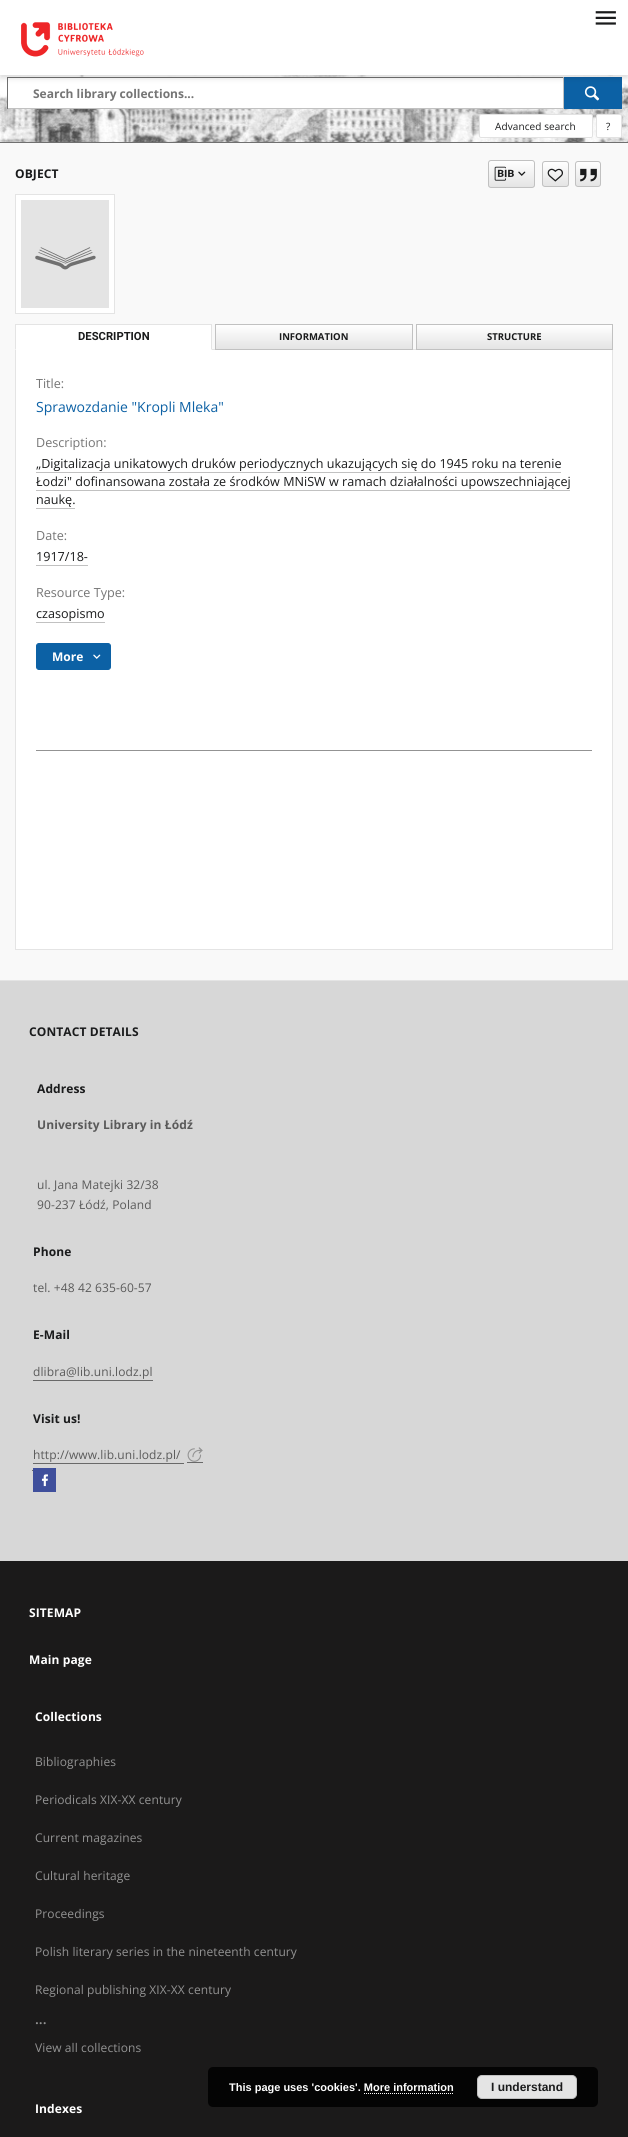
import math
import cairo

surface = cairo.ImageSurface(cairo.Format.RGB24, 628, 2137)
ctx = cairo.Context(surface)
options = cairo.FontOptions()
options.set_hint_metrics(cairo.HintMetrics.OFF)
options.set_hint_style(cairo.HintStyle.NONE)
ctx.set_font_options(options)
ctx.set_miter_limit(4)


def ink(r, g, b):
    ctx.set_source_rgb(r / 255, g / 255, b / 255)


def write(x, y, s, family, size, color, bold=False, italic=False):
    ctx.select_font_face(family, cairo.FontSlant.ITALIC if italic else cairo.FontSlant.NORMAL, cairo.FontWeight.BOLD if bold else cairo.FontWeight.NORMAL)
    ctx.set_font_size(size)
    ink(*color)
    ctx.move_to(x, y)
    ctx.show_text(s)


def write_spaced(x, y, s, letter, word):
    ctx.move_to(x, y)
    for ch in s:
        ctx.show_text(ch)
        ctx.rel_move_to(letter + word * (ch == ' '), 0)


def block(x, y, w, h, *color):
    ink(*color)
    ctx.rectangle(x, y, w, h)
    ctx.fill()


def round_path(x, y, w, h, r):
    ctx.new_sub_path()
    for i, (u, v) in enumerate([(x + w - r, y + h - r), (x + r, y + h - r), (x + r, y + r), (x + w - r, y + r)]):
        ctx.arc(u, v, r, i * math.pi / 2, (i + 1) * math.pi / 2)
    ctx.close_path()


def blur_box(x, y, w, h, r, blur, alpha):
    ctx.push_group_with_content(cairo.Content.ALPHA)
    ctx.set_operator(cairo.Operator.SOURCE)
    for i in range(15, -16, -2):
        e = blur * i / 6
        if min(w, h) + 2 * e > 0:
            ctx.set_source_rgba(0, 0, 0, alpha * math.erfc((i - 1) / 8.5) / 2)
            round_path(x - e, y - e, w + 2 * e, h + 2 * e, max(0, min(r + e + blur * .6, min(w, h) / 2 + e)))
            ctx.fill()
    ctx.mask(ctx.pop_group())


def paste(path, x, y, w, h):
    ctx.save()
    ctx.set_source_surface(cairo.ImageSurface.create_from_png(path), x, y)
    ctx.rectangle(x, y, w, h)
    ctx.fill()
    ctx.restore()


s1 = dict(family="Open Sans", size=12, color=(117, 117, 117), bold=True)
s2 = dict(family="Open Sans", size=10, color=(26, 27, 28))
s3 = dict(family="Roboto", size=11.25, color=(26, 27, 28), bold=True)
s4 = dict(family="Open Sans", size=9.5, color=(26, 27, 28), bold=True)
s5 = dict(family="Open Sans", size=12.6, color=(117, 117, 117))
s6 = dict(family="Open Sans", size=14, color=(12, 97, 165))
s7 = dict(family="Open Sans", size=12.6, color=(26, 27, 28))
s8 = dict(family="Open Sans", size=12, color=(255, 255, 255), bold=True)
s9 = dict(family="Open Sans SemiBold", size=14, color=(147, 147, 147))
s10 = dict(family="Liberation Sans", size=11, color=(255, 255, 255), bold=True)
s11 = dict(family="Liberation Sans", size=12, color=(26, 27, 28), bold=True)

ink(249, 249, 249)
ctx.paint()
paste("pic3.png", 0, 75, 628, 67)
block(8, 78, 555, 30, 255, 255, 255)
block(7, 77, 557, 1, 112, 112, 112)
block(563, 77, 1, 32, 193, 193, 193)
block(7, 108, 557, 1, 193, 193, 193)
block(7, 77, 1, 32, 112, 112, 112)
block(564, 77, 58, 32, 12, 97, 165)
paste("pic4.png", 584, 86, 16, 15)
ink(0, 0, 0)
blur_box(0, 1, 628, 75, 0, 5, 0.08)
blur_box(0, 4, 628, 75, 0, 2.5, 0.06)
blur_box(1, 3, 626, 73, 0, 2, 0.06)
block(0, 0, 628, 75, 255, 255, 255)
paste("pic1.png", 595, 11, 21, 14)
paste("pic2.png", 21, 22, 123, 35)
block(0, 142, 628, 1, 112, 112, 112)
write(33, 98, "Search library collections...", **s1)
ink(255, 255, 255)
round_path(479.5, 114.5, 113, 23, 1.5)
ctx.fill_preserve()
ink(226, 226, 226)
ctx.set_line_width(1)
ctx.stroke()
ctx.select_font_face("Open Sans")
ctx.set_font_size(10)
ink(26, 27, 28)
write_spaced(495, 130, "Advanced search", 0.1, 0)
ink(255, 255, 255)
round_path(596.5, 114.5, 25, 23, 1.5)
ctx.fill_preserve()
ink(226, 226, 226)
ctx.stroke()
write(606, 130, "?", **s2)
ctx.select_font_face("Open Sans", cairo.FontSlant.NORMAL, cairo.FontWeight.BOLD)
ctx.set_font_size(12)
write_spaced(15, 178, "OBJECT", 0.1, 0)
ctx.save()
round_path(488, 160, 47, 28, 3)
ctx.clip()
gradient = cairo.LinearGradient(512, 161, 512, 187)
gradient.add_color_stop_rgba(0, 1, 1, 1, 1)
gradient.add_color_stop_rgba(1, 0.894, 0.894, 0.894, 1)
ctx.set_source(gradient)
ctx.rectangle(488, 161, 47, 26)
ctx.fill()
ctx.restore()
round_path(488.5, 160.5, 46, 27, 2.5)
ink(193, 193, 193)
ctx.stroke()
paste("pic5.png", 494, 166, 20, 15)
paste("pic6.png", 518, 171, 8, 5)
ctx.save()
round_path(542, 161, 27, 26, 3)
ctx.clip()
gradient = cairo.LinearGradient(556, 162, 556, 186)
gradient.add_color_stop_rgba(0, 1, 1, 1, 1)
gradient.add_color_stop_rgba(1, 0.894, 0.894, 0.894, 1)
ctx.set_source(gradient)
ctx.rectangle(542, 162, 27, 24)
ctx.fill()
ctx.restore()
round_path(542.5, 161.5, 26, 25, 2.5)
ctx.stroke()
paste("pic7.png", 547, 168, 16, 14)
ctx.save()
round_path(575, 161, 26, 26, 3)
ctx.clip()
gradient = cairo.LinearGradient(588, 162, 588, 186)
gradient.add_color_stop_rgba(0, 1, 1, 1, 1)
gradient.add_color_stop_rgba(1, 0.894, 0.894, 0.894, 1)
ctx.set_source(gradient)
ctx.rectangle(575, 162, 26, 24)
ctx.fill()
ctx.restore()
round_path(575.5, 161.5, 25, 25, 2.5)
ctx.stroke()
paste("pic8.png", 580, 168, 17, 14)
ink(255, 255, 255)
ctx.rectangle(15.5, 194.5, 99, 119)
ctx.fill_preserve()
ink(228, 228, 228)
ctx.stroke()
block(21, 200, 88, 108, 228, 228, 228)
paste("pic9.png", 35, 247, 61, 23)
block(212, 349, 204, 1, 228, 228, 228)
block(15, 325, 197, 25, 255, 255, 255)
block(15, 324, 197, 1, 228, 228, 228)
ctx.new_path()
ctx.move_to(212, 324)
ctx.line_to(212, 350)
ctx.line_to(211, 349)
ctx.line_to(211, 325)
ctx.close_path()
ctx.fill()
ctx.new_path()
ctx.move_to(15, 350)
ctx.line_to(15, 324)
ctx.line_to(16, 325)
ctx.line_to(16, 349)
ctx.close_path()
ctx.fill()
write(78, 340, "DESCRIPTION", **s3)
gradient = cairo.LinearGradient(314, 325, 314, 349)
gradient.add_color_stop_rgba(0, 1, 1, 1, 1)
gradient.add_color_stop_rgba(1, 0.894, 0.894, 0.894, 1)
ctx.set_source(gradient)
ctx.rectangle(216, 325, 196, 24)
ctx.fill()
ctx.rectangle(215.5, 324.5, 197, 25)
ink(193, 193, 193)
ctx.stroke()
write(279, 340, "INFORMATION", **s4)
gradient = cairo.LinearGradient(515, 325, 515, 349)
gradient.add_color_stop_rgba(0, 1, 1, 1, 1)
gradient.add_color_stop_rgba(1, 0.894, 0.894, 0.894, 1)
ctx.set_source(gradient)
ctx.rectangle(417, 325, 195, 24)
ctx.fill()
ctx.rectangle(416.5, 324.5, 196, 25)
ink(193, 193, 193)
ctx.stroke()
write(487, 340, "STRUCTURE", **s4)
block(16, 350, 596, 599, 255, 255, 255)
block(612, 350, 1, 600, 228, 228, 228)
block(15, 949, 598, 1, 228, 228, 228)
block(15, 350, 1, 600, 228, 228, 228)
write(36, 388, "Title:", **s5)
write(36, 412, "Sprawozdanie \"Kropli Mleka\"", **s6)
write(36, 447, "Description:", **s5)
write(36, 468, "„Digitalizacja unikatowych druków periodycznych ukazujących się do 1945 roku na terenie", **s7)
block(36, 472, 525, 1, 193, 193, 193)
write(36, 486, "Łodzi\" dofinansowana została ze środków MNiSW w ramach działalności upowszechniającej", **s7)
block(36, 490, 534, 1, 193, 193, 193)
write(36, 504, "naukę.", **s7)
block(36, 508, 39, 1, 193, 193, 193)
write(36, 540, "Date:", **s5)
write(36, 561, "1917/18-", **s7)
block(36, 565, 52, 1, 193, 193, 193)
write(36, 597, "Resource Type:", **s5)
write(36, 618, "czasopismo", **s7)
block(36, 622, 69, 1, 193, 193, 193)
ink(12, 97, 165)
round_path(36.5, 643.5, 74, 26, 2.5)
ctx.fill_preserve()
ctx.stroke()
write(52, 661, "More", **s8)
paste("pic10.png", 93, 654, 8, 5)
block(36, 750, 556, 1, 147, 147, 147)
block(0, 981, 628, 580, 215, 215, 215)
block(0, 980, 628, 1, 228, 228, 228)
ink(26, 27, 28)
write_spaced(29, 1036, "CONTACT DETAILS", 0.1, 0)
write_spaced(37, 1093, "Address", 0.1, 0)
ink(90, 90, 90)
write_spaced(37, 1129, "University Library in Łódź", 0.1, 0)
ctx.select_font_face("Open Sans")
write_spaced(37, 1189, "ul. Jana Matejki 32/38", 0.1, 0)
write_spaced(37, 1209, "90-237 Łódź, Poland", 0.1, 0)
ctx.select_font_face("Open Sans", cairo.FontSlant.NORMAL, cairo.FontWeight.BOLD)
ink(26, 27, 28)
write_spaced(33, 1256, "Phone", 0.1, 0)
ctx.select_font_face("Open Sans")
ink(90, 90, 90)
write_spaced(33, 1292, "tel. +48 42 635-60-57", 0.1, 0)
ctx.select_font_face("Open Sans", cairo.FontSlant.NORMAL, cairo.FontWeight.BOLD)
ink(26, 27, 28)
write_spaced(33, 1339, "E-Mail", 0.1, 0)
ctx.select_font_face("Open Sans")
ink(90, 90, 90)
write_spaced(33, 1376, "dlibra@lib.uni.lodz.pl", 0.1, 0)
block(33, 1380, 120, 1, 105, 105, 105)
ctx.select_font_face("Open Sans", cairo.FontSlant.NORMAL, cairo.FontWeight.BOLD)
ink(26, 27, 28)
write_spaced(33, 1423, "Visit us!", 0.1, 0)
ctx.select_font_face("Open Sans")
ink(90, 90, 90)
write_spaced(33, 1459, "http://www.lib.uni.lodz.pl/", 0.1, 0)
block(33, 1463, 151, 1, 105, 105, 105)
block(187, 1462, 16, 1, 105, 105, 105)
paste("pic11.png", 187, 1447, 16, 15)
block(32, 1470, 1, 1, 105, 105, 105)
block(33, 1468, 23, 24, 63, 79, 156)
paste("pic12.png", 41, 1474, 7, 13)
block(0, 1561, 628, 576, 27, 26, 26)
ctx.select_font_face("Open Sans", cairo.FontSlant.NORMAL, cairo.FontWeight.BOLD)
ink(255, 255, 255)
write_spaced(29, 1617, "SITEMAP", 0.1, 0)
write_spaced(29, 1664, "Main page", 0.1, 0)
write_spaced(35, 1721, "Collections", 0.1, 0)
ctx.select_font_face("Open Sans")
ink(147, 147, 147)
write_spaced(35, 1766, "Bibliographies", 0.1, 0)
write_spaced(35, 1804, "Periodicals XIX-XX century", 0.1, 0)
write_spaced(35, 1842, "Current magazines", 0.1, 0)
write_spaced(35, 1880, "Cultural heritage", 0.1, 0)
write_spaced(35, 1918, "Proceedings", 0.1, 0)
write_spaced(35, 1956, "Polish literary series in the nineteenth century", 0.1, 0)
write_spaced(35, 1994, "Regional publishing XIX-XX century", 0.1, 0)
write(35, 2024, "...", **s9)
ctx.select_font_face("Open Sans")
ctx.set_font_size(12)
write_spaced(35, 2052, "View all collections", 0.1, 0)
ctx.select_font_face("Open Sans", cairo.FontSlant.NORMAL, cairo.FontWeight.BOLD)
ink(255, 255, 255)
write_spaced(35, 2113, "Indexes", 0.1, 0)
ink(4, 4, 4)
round_path(208, 2067, 390, 40, 5)
ctx.fill()
write(229, 2091, "This page uses 'cookies'. More information", **s10)
ink(228, 228, 228)
round_path(477.5, 2075.5, 99, 23, 4.5)
ctx.fill_preserve()
ink(193, 193, 193)
ctx.stroke()
write(491, 2091, "I understand", **s11)
ctx.new_path()
ctx.move_to(364, 2093.5)
ctx.line_to(454, 2093.5)
ink(255, 255, 255)
ctx.set_dash([1, 1])
ctx.stroke()
surface.write_to_png("screenshot.png")
